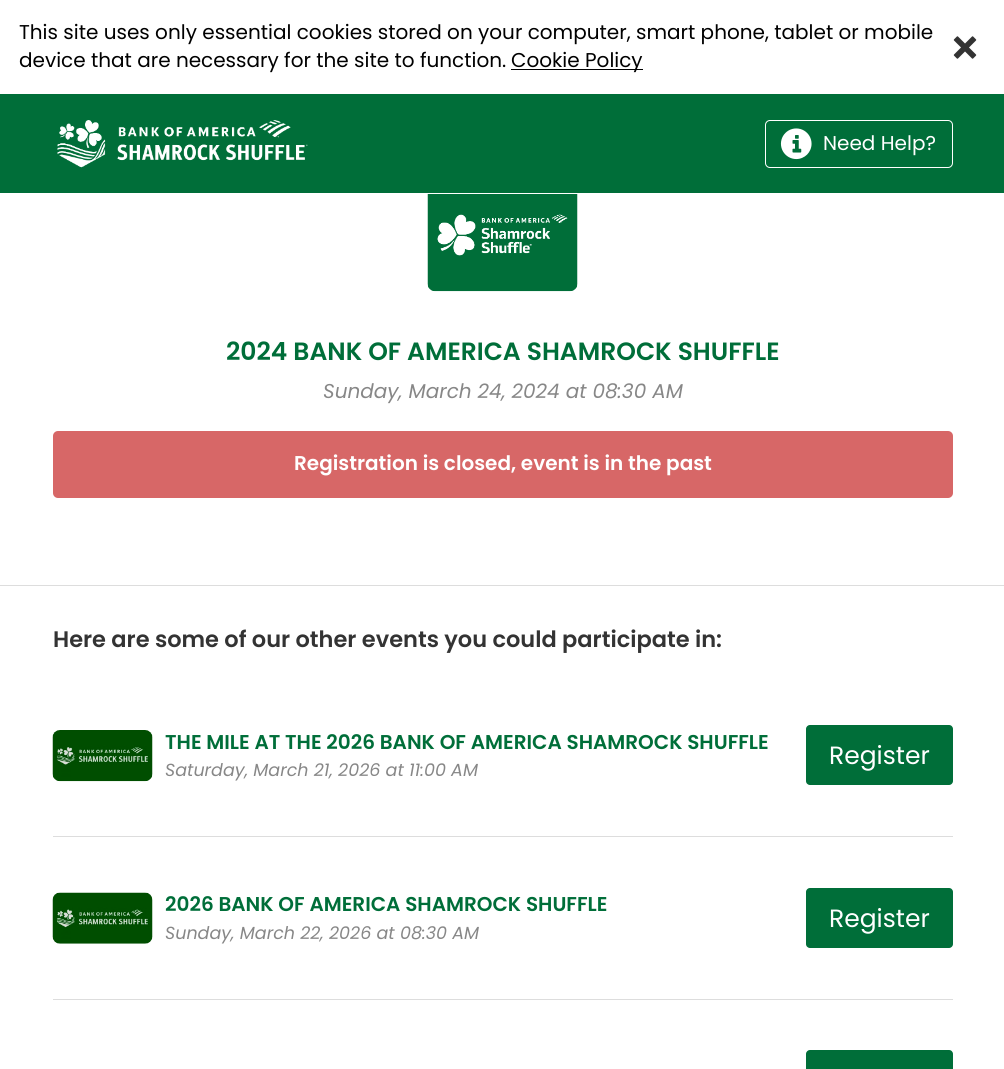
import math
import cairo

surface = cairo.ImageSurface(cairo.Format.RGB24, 1004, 1069)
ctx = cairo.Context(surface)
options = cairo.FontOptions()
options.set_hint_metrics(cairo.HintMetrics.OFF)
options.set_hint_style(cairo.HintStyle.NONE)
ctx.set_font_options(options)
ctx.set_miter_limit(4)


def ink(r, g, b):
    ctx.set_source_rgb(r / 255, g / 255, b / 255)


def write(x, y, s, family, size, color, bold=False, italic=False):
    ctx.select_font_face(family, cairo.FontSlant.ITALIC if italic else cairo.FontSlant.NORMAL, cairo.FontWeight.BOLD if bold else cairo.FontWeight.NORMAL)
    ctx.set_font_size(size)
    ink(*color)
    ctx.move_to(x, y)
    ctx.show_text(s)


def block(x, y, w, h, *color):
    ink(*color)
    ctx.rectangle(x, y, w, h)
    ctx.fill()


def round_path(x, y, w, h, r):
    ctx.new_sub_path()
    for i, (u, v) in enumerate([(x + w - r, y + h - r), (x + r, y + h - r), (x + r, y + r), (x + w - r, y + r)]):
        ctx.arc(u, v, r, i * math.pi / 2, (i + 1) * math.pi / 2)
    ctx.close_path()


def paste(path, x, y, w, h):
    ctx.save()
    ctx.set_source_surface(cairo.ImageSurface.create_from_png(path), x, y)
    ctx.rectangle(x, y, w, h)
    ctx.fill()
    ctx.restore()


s1 = dict(family="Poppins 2", size=20, color=(0, 0, 0))
s2 = dict(family="Poppins", size=20, color=(0, 0, 0))
s3 = dict(family="Poppins 2", size=20, color=(255, 255, 255))
s4 = dict(family="Poppins SemiBold", size=25, color=(0, 110, 57))
s5 = dict(family="Poppins", size=20, color=(135, 135, 135), italic=True)
s6 = dict(family="Poppins SemiBold", size=20, color=(255, 255, 255))
s7 = dict(family="Poppins SemiBold", size=22.5, color=(51, 51, 51))
s8 = dict(family="Poppins SemiBold", size=20, color=(0, 110, 57))
s9 = dict(family="Poppins", size=17.5, color=(135, 135, 135), italic=True)
s10 = dict(family="Poppins", size=25, color=(255, 255, 255))

ink(255, 255, 255)
ctx.paint()
write(19, 39, "This site uses only essential cookies stored on your computer, smart phone, tablet or mobile", **s1)
write(19, 67, "device that are necessary for the site to function.", **s1)
block(511, 69, 132, 1, 0, 0, 0)
write(511, 67, "Cookie Policy", **s2)
paste("pic1.png", 953, 36, 24, 23)
block(0, 94, 1004, 99, 0, 110, 57)
paste("pic2.png", 57, 120, 251, 48)
round_path(765.5, 120.5, 187, 47, 4.5)
ink(255, 255, 255)
ctx.set_line_width(1)
ctx.stroke()
paste("pic3.png", 780, 128, 32, 32)
write(823, 150, "Need Help?", **s3)
block(0, 585, 1004, 1, 221, 221, 221)
paste("pic4.png", 427, 194, 151, 98)
write(226, 360, "2024 BANK OF AMERICA SHAMROCK SHUFFLE", **s4)
write(323, 398, "Sunday, March 24, 2024 at 08:30 AM", **s5)
ink(215, 103, 103)
round_path(53, 431, 900, 67, 5)
ctx.fill()
write(294, 470, "Registration is closed, event is in the past", **s6)
write(53, 647, "Here are some of our other events you could participate in:", **s7)
block(53, 836, 900, 1, 221, 221, 221)
paste("pic5.png", 52, 730, 101, 52)
write(165, 749, "THE MILE AT THE 2026 BANK OF AMERICA SHAMROCK SHUFFLE", **s8)
write(165, 776, "Saturday, March 21, 2026 at 11:00 AM", **s9)
ink(0, 110, 57)
round_path(806, 725, 147, 60, 4)
ctx.fill()
write(829, 764, "Register", **s10)
block(53, 999, 900, 1, 221, 221, 221)
paste("pic6.png", 52, 892, 101, 52)
write(165, 911, "2026 BANK OF AMERICA SHAMROCK SHUFFLE", **s8)
write(165, 939, "Sunday, March 22, 2026 at 08:30 AM", **s9)
ink(0, 110, 57)
round_path(806, 888, 147, 60, 4)
ctx.fill()
write(829, 927, "Register", **s10)
ink(0, 110, 57)
round_path(806, 1050, 147, 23, 4)
ctx.fill()
surface.write_to_png("screenshot.png")
